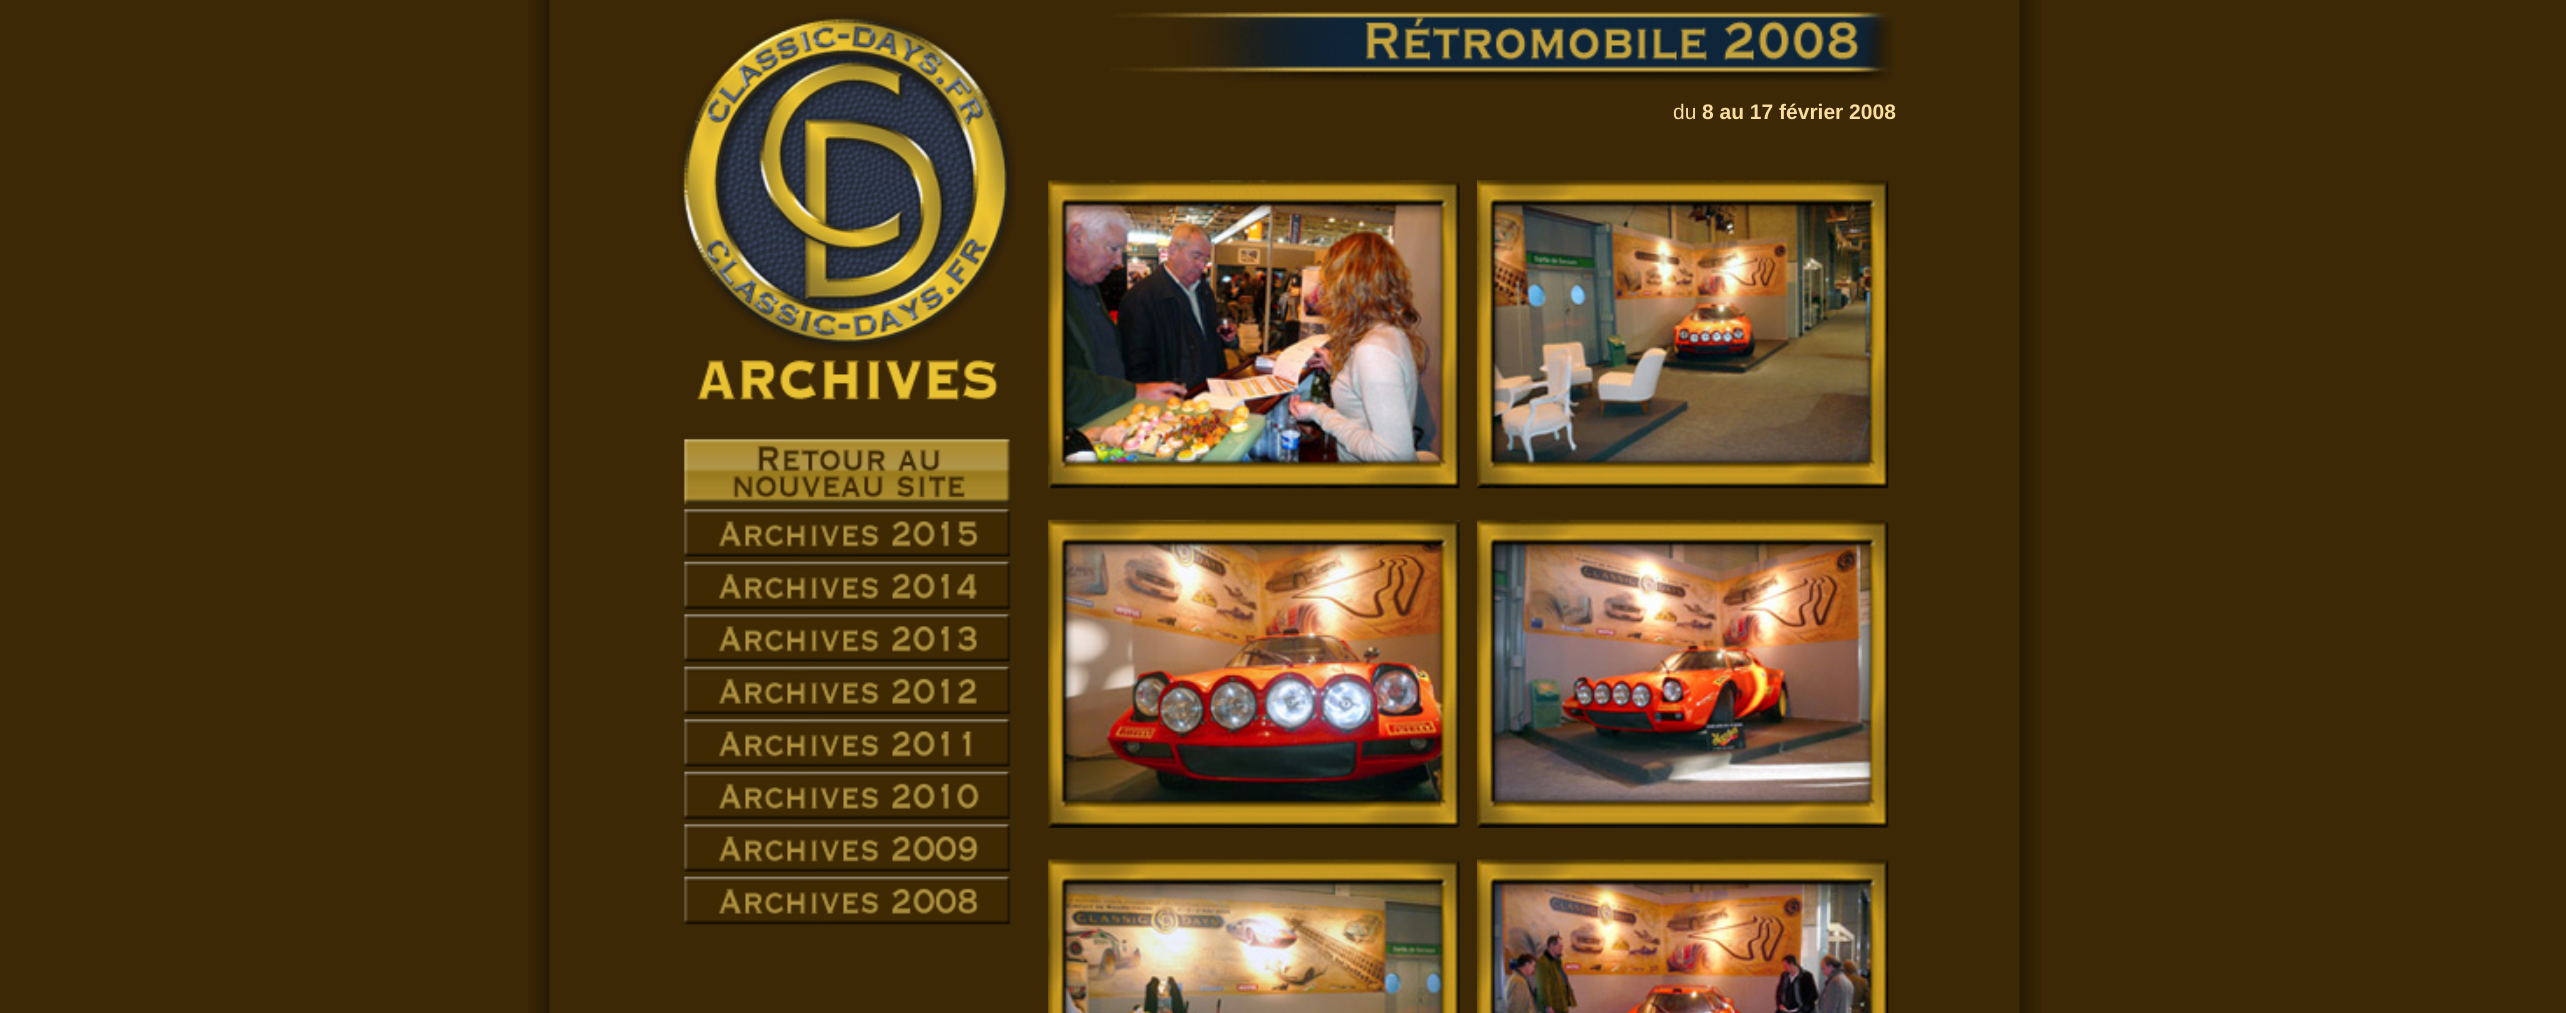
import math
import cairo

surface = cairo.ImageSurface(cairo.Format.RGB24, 2566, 1013)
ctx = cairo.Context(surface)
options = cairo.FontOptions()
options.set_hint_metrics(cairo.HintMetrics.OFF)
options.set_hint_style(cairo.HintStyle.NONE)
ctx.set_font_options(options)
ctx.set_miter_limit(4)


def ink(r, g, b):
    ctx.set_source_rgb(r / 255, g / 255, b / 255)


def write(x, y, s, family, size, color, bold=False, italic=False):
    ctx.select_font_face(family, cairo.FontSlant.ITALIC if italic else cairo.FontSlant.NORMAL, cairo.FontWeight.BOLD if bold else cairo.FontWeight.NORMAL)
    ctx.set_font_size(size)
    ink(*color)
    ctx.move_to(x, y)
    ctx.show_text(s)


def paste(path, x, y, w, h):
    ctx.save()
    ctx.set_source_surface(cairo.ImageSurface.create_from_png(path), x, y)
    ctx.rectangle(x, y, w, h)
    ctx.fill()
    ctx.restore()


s1 = dict(family="Liberation Sans", size=21, color=(251, 222, 159))
s2 = dict(family="Liberation Sans", size=21, color=(251, 222, 159), bold=True)

ink(61, 40, 6)
ctx.paint()
paste("pic1.png", 528, 0, 1513, 1013)
paste("pic2.png", 678, 14, 338, 387)
paste("pic3.png", 683, 438, 328, 67)
paste("pic4.png", 683, 508, 328, 49)
paste("pic5.png", 683, 561, 328, 49)
paste("pic6.png", 683, 613, 328, 49)
paste("pic7.png", 683, 666, 328, 49)
paste("pic8.png", 683, 718, 328, 49)
paste("pic9.png", 683, 771, 328, 49)
paste("pic10.png", 683, 823, 328, 49)
paste("pic11.png", 683, 876, 328, 49)
paste("pic12.png", 1110, 12, 783, 70)
write(1673, 119, "du", **s1)
write(1702, 119, "8 au 17 février 2008", **s2)
paste("pic13.png", 1048, 180, 412, 309)
paste("pic14.png", 1477, 180, 412, 309)
paste("pic15.png", 1048, 519, 412, 309)
paste("pic16.png", 1477, 519, 412, 309)
paste("pic17.png", 1048, 859, 412, 154)
paste("pic18.png", 1477, 859, 412, 154)
surface.write_to_png("screenshot.png")
